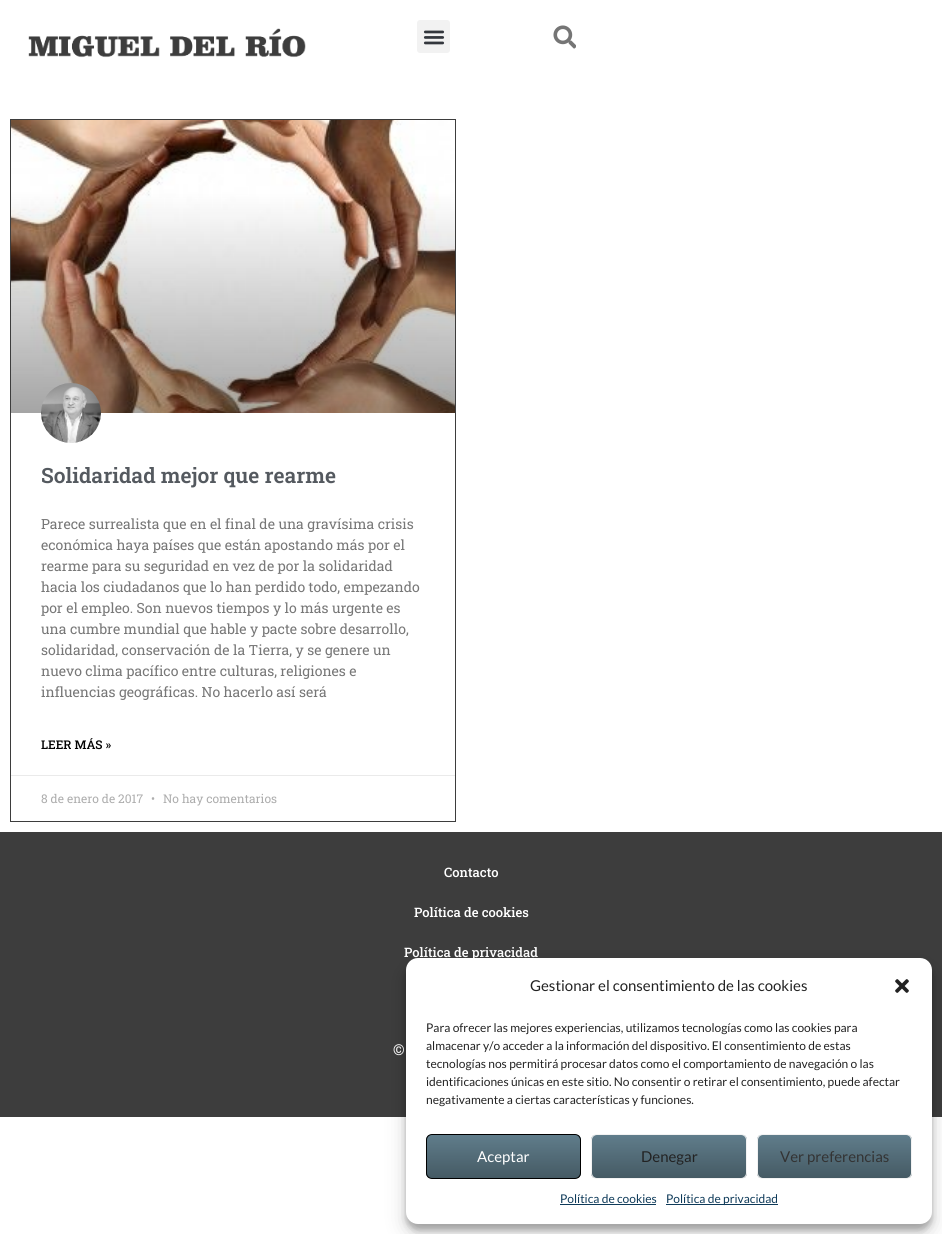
import math
import cairo

surface = cairo.ImageSurface(cairo.Format.RGB24, 942, 1234)
ctx = cairo.Context(surface)
options = cairo.FontOptions()
options.set_hint_metrics(cairo.HintMetrics.OFF)
options.set_hint_style(cairo.HintStyle.NONE)
ctx.set_font_options(options)
ctx.set_miter_limit(4)


def ink(r, g, b):
    ctx.set_source_rgb(r / 255, g / 255, b / 255)


def write(x, y, s, family, size, color, bold=False, italic=False):
    ctx.select_font_face(family, cairo.FontSlant.ITALIC if italic else cairo.FontSlant.NORMAL, cairo.FontWeight.BOLD if bold else cairo.FontWeight.NORMAL)
    ctx.set_font_size(size)
    ink(*color)
    ctx.move_to(x, y)
    ctx.show_text(s)


def block(x, y, w, h, *color):
    ink(*color)
    ctx.rectangle(x, y, w, h)
    ctx.fill()


def round_path(x, y, w, h, r):
    ctx.new_sub_path()
    for i, (u, v) in enumerate([(x + w - r, y + h - r), (x + r, y + h - r), (x + r, y + r), (x + w - r, y + r)]):
        ctx.arc(u, v, r, i * math.pi / 2, (i + 1) * math.pi / 2)
    ctx.close_path()


def blur_box(x, y, w, h, r, blur, alpha):
    ctx.push_group_with_content(cairo.Content.ALPHA)
    ctx.set_operator(cairo.Operator.SOURCE)
    for i in range(15, -16, -2):
        e = blur * i / 6
        if min(w, h) + 2 * e > 0:
            ctx.set_source_rgba(0, 0, 0, alpha * math.erfc((i - 1) / 8.5) / 2)
            round_path(x - e, y - e, w + 2 * e, h + 2 * e, max(0, min(r + e + blur * .6, min(w, h) / 2 + e)))
            ctx.fill()
    ctx.mask(ctx.pop_group())


def paste(path, x, y, w, h):
    ctx.save()
    ctx.set_source_surface(cairo.ImageSurface.create_from_png(path), x, y)
    ctx.rectangle(x, y, w, h)
    ctx.fill()
    ctx.restore()


s1 = dict(family="Roboto Slab SemiBold", size=21, color=(84, 89, 95))
s2 = dict(family="Roboto Slab", size=14, color=(119, 119, 119))
s3 = dict(family="Roboto Slab Medium", size=12, color=(2, 2, 2))
s4 = dict(family="Roboto Slab", size=12, color=(173, 173, 173))
s5 = dict(family="Roboto Slab Medium", size=13, color=(255, 255, 255))
s6 = dict(family="Roboto Slab Medium", size=15, color=(255, 255, 255))
s7 = dict(family="Lato", size=15, color=(34, 34, 34))
s8 = dict(family="Lato", size=12, color=(34, 34, 34))
s9 = dict(family="Lato", size=15, color=(255, 255, 255))
s10 = dict(family="Lato", size=15, color=(51, 51, 51))
s11 = dict(family="Lato", size=12, color=(14, 58, 89))

ink(255, 255, 255)
ctx.paint()
paste("pic1.png", 28, 28, 278, 30)
ink(242, 242, 242)
round_path(417, 20, 33, 33, 3)
ctx.fill()
paste("pic2.png", 423, 30, 22, 15)
paste("pic3.png", 553, 25, 23, 24)
ctx.rectangle(10.5, 119.5, 445, 702)
ink(61, 61, 61)
ctx.set_line_width(1)
ctx.stroke()
paste("pic4.png", 11, 120, 444, 293)
paste("pic5.png", 41, 383, 60, 60)
write(41, 483, "Solidaridad mejor que rearme", **s1)
write(41, 529, "Parece surrealista que en el final de una gravísima crisis", **s2)
write(41, 550, "económica haya países que están apostando más por el", **s2)
write(41, 571, "rearme para su seguridad en vez de por la solidaridad", **s2)
write(41, 592, "hacia los ciudadanos que lo han perdido todo, empezando", **s2)
write(41, 613, "por el empleo. Son nuevos tiempos y lo más urgente es", **s2)
write(41, 634, "una cumbre mundial que hable y pacte sobre desarrollo,", **s2)
write(41, 655, "solidaridad, conservación de la Tierra, y se genere un", **s2)
write(41, 676, "nuevo clima pacífico entre culturas, religiones e", **s2)
write(41, 697, "influencias geográficas. No hacerlo así será", **s2)
write(41, 749, "LEER MÁS »", **s3)
block(11, 775, 444, 1, 234, 234, 234)
write(41, 803, "8 de enero de 2017", **s4)
write(151, 803, "•", **s4)
write(163, 803, "No hay comentarios", **s4)
block(0, 832, 942, 285, 61, 61, 61)
write(444, 877, "Contacto", **s5)
write(414, 917, "Política de cookies", **s5)
write(404, 957, "Política de privacidad", **s5)
write(393, 1055, "©", **s6)
ink(0, 0, 0)
blur_box(406, 964, 526, 266, 12, 3, 0.23)
blur_box(406, 968, 526, 266, 12, 10, 0.19)
ink(255, 255, 255)
round_path(406, 958, 526, 266, 12)
ctx.fill()
write(530, 991, "Gestionar el consentimiento de las cookies", **s7)
paste("pic6.png", 895, 979, 14, 14)
write(426, 1032, "Para ofrecer las mejores experiencias, utilizamos tecnologías como las cookies para", **s8)
write(426, 1050, "almacenar y/o acceder a la información del dispositivo. El consentimiento de estas", **s8)
write(426, 1068, "tecnologías nos permitirá procesar datos como el comportamiento de navegación o las", **s8)
write(426, 1086, "identificaciones únicas en este sitio. No consentir o retirar el consentimiento, puede afectar", **s8)
write(426, 1104, "negativamente a ciertas características y funciones.", **s8)
ctx.save()
round_path(426, 1134, 155, 45, 6)
ctx.clip()
gradient = cairo.LinearGradient(504, 1135, 504, 1178)
gradient.add_color_stop_rgba(0, 0.376, 0.49, 0.545, 1)
gradient.add_color_stop_rgba(1, 0.271, 0.353, 0.392, 1)
ctx.set_source(gradient)
ctx.rectangle(426, 1135, 155, 43)
ctx.fill()
ctx.restore()
round_path(426.5, 1134.5, 154, 44, 5.5)
ink(0, 0, 0)
ctx.stroke()
write(477, 1162, "Aceptar", **s9)
ctx.save()
round_path(591, 1134, 156, 45, 6)
ctx.clip()
gradient = cairo.LinearGradient(669, 1135, 669, 1178)
gradient.add_color_stop_rgba(0, 0.376, 0.49, 0.545, 1)
gradient.add_color_stop_rgba(1, 0.271, 0.353, 0.392, 1)
ctx.set_source(gradient)
ctx.rectangle(591, 1135, 156, 43)
ctx.fill()
ctx.restore()
round_path(591.5, 1134.5, 155, 44, 5.5)
ink(242, 242, 242)
ctx.stroke()
write(641, 1162, "Denegar", **s7)
ctx.save()
round_path(757, 1134, 155, 45, 6)
ctx.clip()
gradient = cairo.LinearGradient(835, 1135, 835, 1178)
gradient.add_color_stop_rgba(0, 0.376, 0.49, 0.545, 1)
gradient.add_color_stop_rgba(1, 0.271, 0.353, 0.392, 1)
ctx.set_source(gradient)
ctx.rectangle(757, 1135, 155, 43)
ctx.fill()
ctx.restore()
round_path(757.5, 1134.5, 154, 44, 5.5)
ink(242, 242, 242)
ctx.stroke()
write(780, 1162, "Ver preferencias", **s10)
write(560, 1203, "Política de cookies", **s11)
block(560, 1204, 96, 1, 14, 58, 89)
block(666, 1204, 112, 1, 14, 58, 89)
write(666, 1203, "Política de privacidad", **s11)
surface.write_to_png("screenshot.png")
